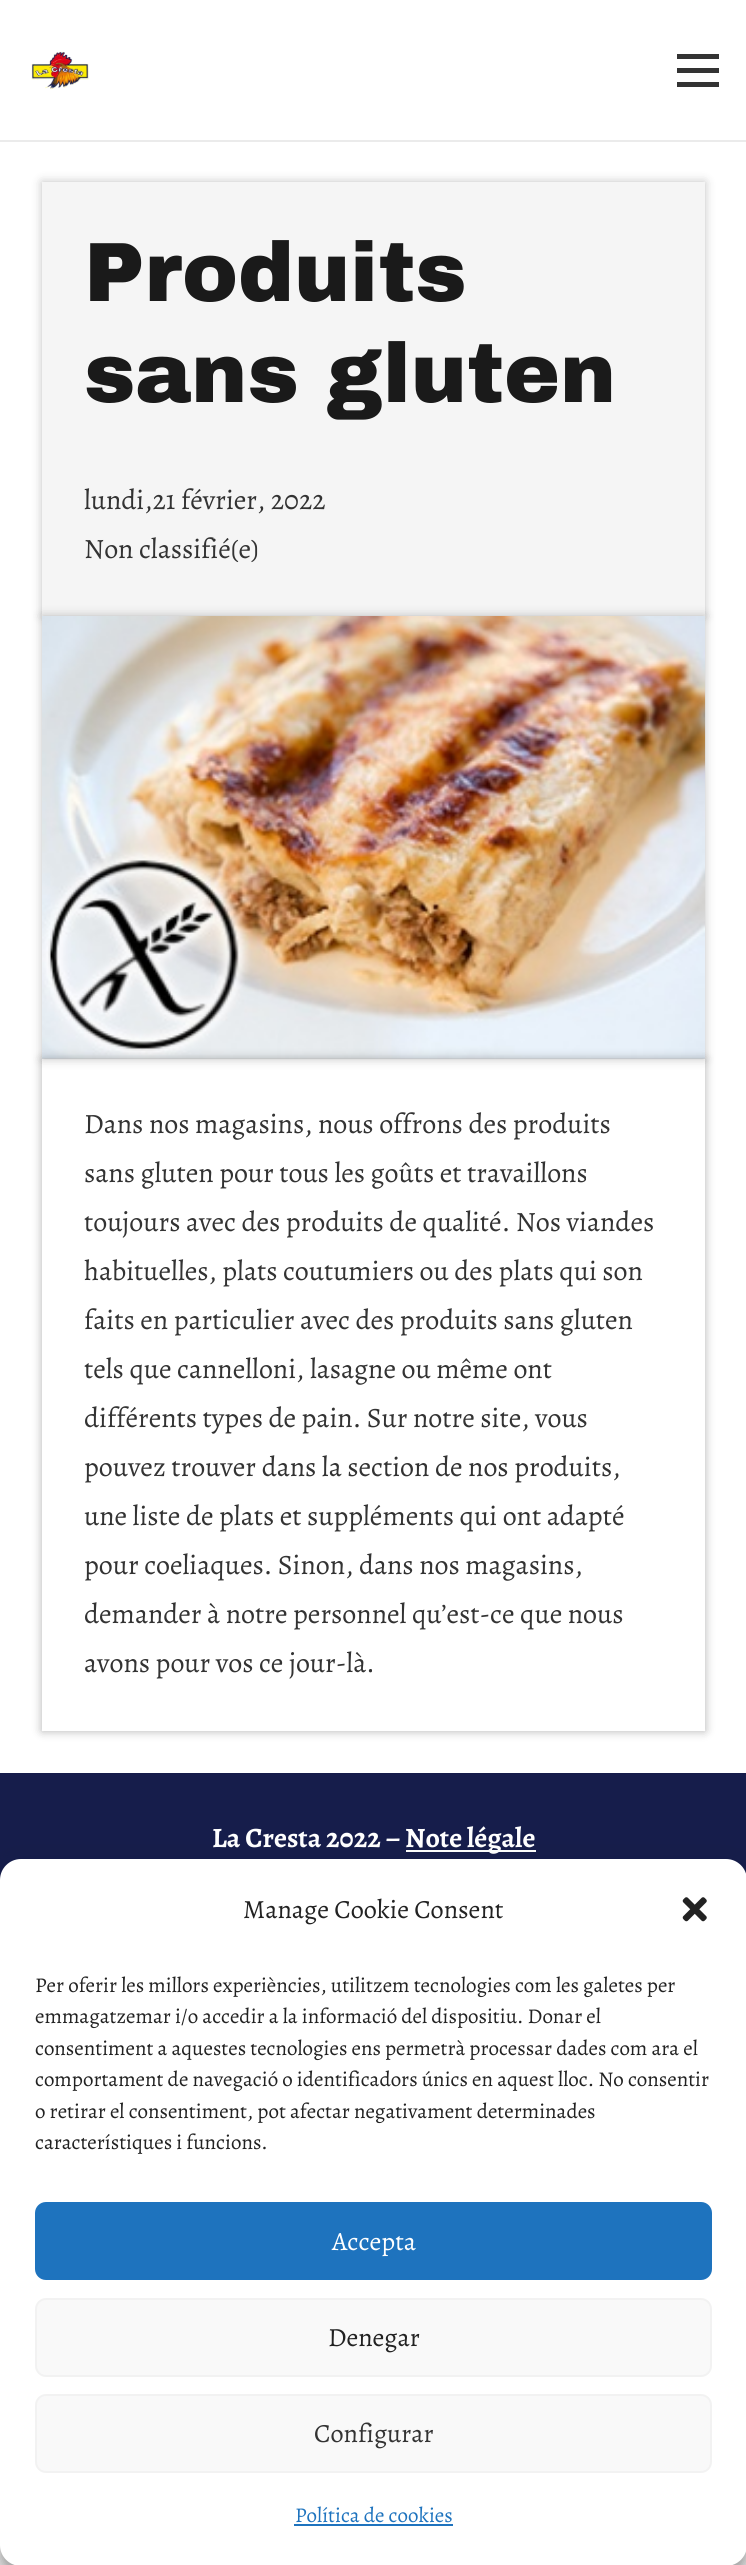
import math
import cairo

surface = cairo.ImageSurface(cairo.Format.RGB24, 746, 2565)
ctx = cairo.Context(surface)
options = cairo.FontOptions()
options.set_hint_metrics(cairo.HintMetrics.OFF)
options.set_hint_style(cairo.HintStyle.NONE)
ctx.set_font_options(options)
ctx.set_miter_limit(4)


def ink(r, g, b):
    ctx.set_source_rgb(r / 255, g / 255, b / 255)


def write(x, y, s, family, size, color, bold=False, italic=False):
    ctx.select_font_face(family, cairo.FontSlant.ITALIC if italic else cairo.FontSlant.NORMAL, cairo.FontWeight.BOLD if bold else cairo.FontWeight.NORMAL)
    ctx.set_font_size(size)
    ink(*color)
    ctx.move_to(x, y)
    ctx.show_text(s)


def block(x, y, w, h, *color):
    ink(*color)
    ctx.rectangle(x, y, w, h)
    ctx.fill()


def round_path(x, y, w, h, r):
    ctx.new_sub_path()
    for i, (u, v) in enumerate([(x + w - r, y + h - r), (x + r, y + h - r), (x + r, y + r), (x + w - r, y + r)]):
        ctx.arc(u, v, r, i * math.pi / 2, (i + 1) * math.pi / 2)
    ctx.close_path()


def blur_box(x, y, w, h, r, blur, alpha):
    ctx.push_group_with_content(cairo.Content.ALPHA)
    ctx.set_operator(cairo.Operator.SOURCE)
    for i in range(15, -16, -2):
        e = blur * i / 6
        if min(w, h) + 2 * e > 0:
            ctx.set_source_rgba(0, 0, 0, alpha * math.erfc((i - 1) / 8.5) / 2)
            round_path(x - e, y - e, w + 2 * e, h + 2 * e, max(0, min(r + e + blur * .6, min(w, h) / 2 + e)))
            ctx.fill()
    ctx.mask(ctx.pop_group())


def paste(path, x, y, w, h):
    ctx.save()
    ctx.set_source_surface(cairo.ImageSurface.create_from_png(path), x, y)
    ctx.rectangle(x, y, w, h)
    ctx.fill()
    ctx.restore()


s1 = dict(family="Archivo Black Black", size=84, color=(26, 26, 26))
s2 = dict(family="Alegreya", size=28, color=(51, 51, 51))
s3 = dict(family="Alegreya", size=28, color=(255, 255, 255), bold=True)
s4 = dict(family="Alegreya", size=26.25, color=(34, 34, 34))
s5 = dict(family="Alegreya", size=21, color=(34, 34, 34))
s6 = dict(family="Alegreya", size=26.25, color=(255, 255, 255))
s7 = dict(family="Alegreya", size=26.25, color=(51, 51, 51))
s8 = dict(family="Alegreya", size=21, color=(30, 115, 190))

ink(245, 245, 245)
ctx.paint()
block(0, 0, 746, 1773, 255, 255, 255)
block(0, 140, 746, 2, 235, 235, 235)
paste("pic1.png", 31, 51, 58, 39)
block(677, 68, 42, 5, 51, 51, 51)
block(677, 54, 42, 5, 51, 51, 51)
block(677, 82, 42, 5, 51, 51, 51)
ink(12, 12, 12)
blur_box(42, 182, 663, 434, 0, 5, 0.25)
block(42, 182, 663, 434, 245, 245, 245)
write(84, 301, "Produits", **s1)
write(84, 402, "sans gluten", **s1)
write(84, 509, "lundi,21 février, 2022", **s2)
write(84, 558, "Non classifié(e)", **s2)
ink(12, 12, 12)
blur_box(42, 616, 663, 443, 0, 5, 0.25)
paste("pic2.png", 42, 616, 664, 443)
ctx.save()
ctx.set_fill_rule(cairo.FillRule.EVEN_ODD)
ctx.new_path()
ctx.move_to(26, 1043)
ctx.line_to(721, 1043)
ctx.line_to(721, 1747)
ctx.line_to(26, 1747)
ctx.close_path()
ctx.move_to(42, 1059)
ctx.line_to(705, 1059)
ctx.line_to(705, 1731)
ctx.line_to(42, 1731)
ctx.close_path()
ctx.clip()
blur_box(42, 1059, 663, 672, 0, 5, 0.32)
ctx.restore()
write(84, 1133, "Dans nos magasins, nous offrons des produits", **s2)
write(84, 1182, "sans gluten pour tous les goûts et travaillons", **s2)
write(84, 1231, "toujours avec des produits de qualité. Nos viandes", **s2)
write(84, 1280, "habituelles, plats coutumiers ou des plats qui son", **s2)
write(84, 1329, "faits en particulier avec des produits sans gluten", **s2)
write(84, 1378, "tels que cannelloni, lasagne ou même ont", **s2)
write(84, 1427, "différents types de pain. Sur notre site, vous", **s2)
write(84, 1476, "pouvez trouver dans la section de nos produits,", **s2)
write(84, 1525, "une liste de plats et suppléments qui ont adapté", **s2)
write(84, 1574, "pour coeliaques. Sinon, dans nos magasins,", **s2)
write(84, 1623, "demander à notre personnel qu’est-ce que nous", **s2)
write(84, 1672, "avons pour vos ce jour-là.", **s2)
block(0, 1773, 746, 107, 22, 29, 75)
write(212, 1847, "La Cresta 2022 –", **s3)
block(406, 1850, 130, 2, 255, 255, 255)
write(405, 1847, "Note légale", **s3)
ink(0, 0, 0)
blur_box(0, 1869, 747, 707, 21, 5, 0.23)
blur_box(0, 1876, 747, 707, 21, 17.5, 0.19)
ink(255, 255, 255)
round_path(0, 1859, 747, 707, 21)
ctx.fill()
write(243, 1918, "Manage Cookie Consent", **s4)
paste("pic3.png", 682, 1897, 25, 25)
write(35, 1992, "Per oferir les millors experiències, utilitzem tecnologies com les galetes per", **s5)
write(35, 2023, "emmagatzemar i/o accedir a la informació del dispositiu. Donar el", **s5)
write(35, 2055, "consentiment a aquestes tecnologies ens permetrà processar dades com ara el", **s5)
write(35, 2086, "comportament de navegació o identificadors únics en aquest lloc. No consentir", **s5)
write(35, 2118, "o retirar el consentiment, pot afectar negativament determinades", **s5)
write(35, 2149, "característiques i funcions.", **s5)
ink(30, 115, 190)
round_path(36, 2203, 675, 76, 10)
ctx.fill_preserve()
ctx.stroke()
write(332, 2250, "Accepta", **s6)
ink(249, 249, 249)
round_path(36, 2299, 675, 77, 10)
ctx.fill_preserve()
ink(242, 242, 242)
ctx.stroke()
write(328, 2346, "Denegar", **s4)
ink(249, 249, 249)
round_path(36, 2395, 675, 77, 10)
ctx.fill_preserve()
ink(242, 242, 242)
ctx.stroke()
write(314, 2442, "Configurar", **s7)
write(295, 2522, "Política de cookies", **s8)
block(294, 2524, 159, 2, 30, 115, 190)
surface.write_to_png("screenshot.png")
